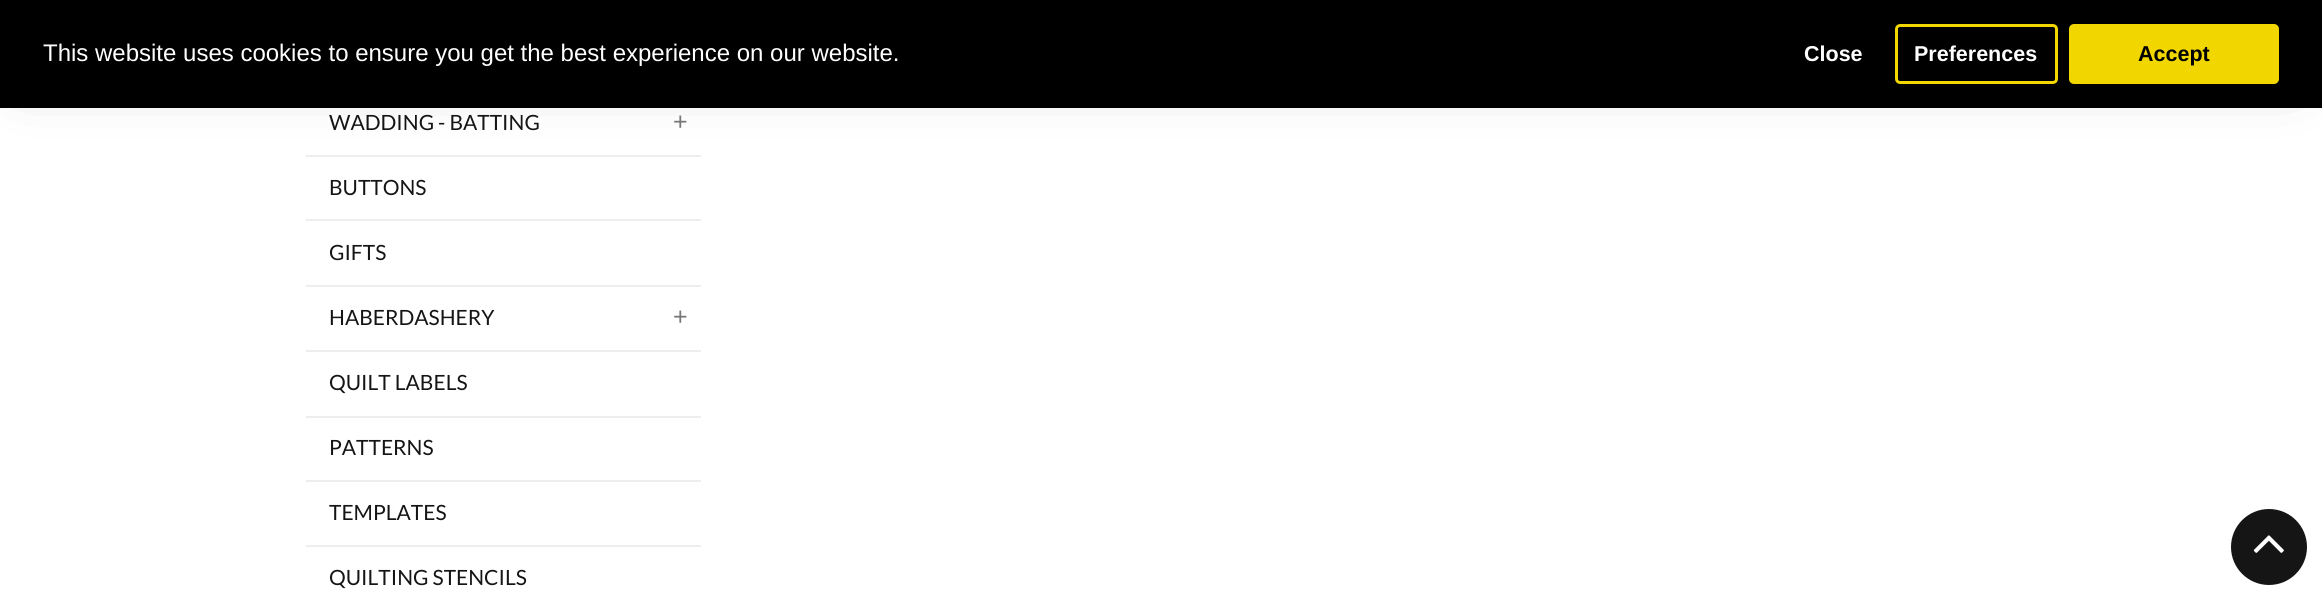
import math
import cairo

surface = cairo.ImageSurface(cairo.Format.RGB24, 2322, 599)
ctx = cairo.Context(surface)
options = cairo.FontOptions()
options.set_hint_metrics(cairo.HintMetrics.OFF)
options.set_hint_style(cairo.HintStyle.NONE)
ctx.set_font_options(options)
ctx.set_miter_limit(4)


def ink(r, g, b):
    ctx.set_source_rgb(r / 255, g / 255, b / 255)


def write(x, y, s, family, size, color, bold=False, italic=False):
    ctx.select_font_face(family, cairo.FontSlant.ITALIC if italic else cairo.FontSlant.NORMAL, cairo.FontWeight.BOLD if bold else cairo.FontWeight.NORMAL)
    ctx.set_font_size(size)
    ink(*color)
    ctx.move_to(x, y)
    ctx.show_text(s)


def block(x, y, w, h, *color):
    ink(*color)
    ctx.rectangle(x, y, w, h)
    ctx.fill()


def round_path(x, y, w, h, r):
    ctx.new_sub_path()
    for i, (u, v) in enumerate([(x + w - r, y + h - r), (x + r, y + h - r), (x + r, y + r), (x + w - r, y + r)]):
        ctx.arc(u, v, r, i * math.pi / 2, (i + 1) * math.pi / 2)
    ctx.close_path()


def blur_box(x, y, w, h, r, blur, alpha):
    ctx.push_group_with_content(cairo.Content.ALPHA)
    ctx.set_operator(cairo.Operator.SOURCE)
    for i in range(15, -16, -2):
        e = blur * i / 6
        if min(w, h) + 2 * e > 0:
            ctx.set_source_rgba(0, 0, 0, alpha * math.erfc((i - 1) / 8.5) / 2)
            round_path(x - e, y - e, w + 2 * e, h + 2 * e, max(0, min(r + e + blur * .6, min(w, h) / 2 + e)))
            ctx.fill()
    ctx.mask(ctx.pop_group())


def paste(path, x, y, w, h):
    ctx.save()
    ctx.set_source_surface(cairo.ImageSurface.create_from_png(path), x, y)
    ctx.rectangle(x, y, w, h)
    ctx.fill()
    ctx.restore()


s1 = dict(family="Liberation Sans", size=24, color=(255, 255, 255))
s2 = dict(family="Liberation Sans", size=21.5, color=(255, 255, 255), bold=True)
s3 = dict(family="Liberation Sans", size=21.5, color=(0, 0, 0), bold=True)
s4 = dict(family="Lato", size=21, color=(21, 21, 21))
s5 = dict(family="Liberation Sans", size=25, color=(119, 119, 119))

ink(255, 255, 255)
ctx.paint()
block(306, 155, 395, 2, 238, 238, 238)
ink(0, 0, 0)
blur_box(27, 33, 2262, 32, 0, 34, 0.3)
block(0, 0, 2322, 108, 0, 0, 0)
write(43, 61, "This website uses cookies to ensure you get the best experience on our website.", **s1)
write(1804, 61, "Close", **s2)
round_path(1896.5, 25.5, 160, 57, 3.5)
ink(241, 214, 0)
ctx.set_line_width(3)
ctx.stroke()
write(1914, 61, "Preferences", **s2)
ink(241, 214, 0)
round_path(2069, 24, 210, 60, 5)
ctx.fill()
write(2138, 61, "Accept", **s3)
write(329, 130, "WADDING - BATTING", **s4)
write(673, 130, "+", **s5)
write(329, 195, "BUTTONS", **s4)
block(306, 219, 395, 2, 238, 238, 238)
write(329, 260, "GIFTS", **s4)
block(306, 285, 395, 2, 238, 238, 238)
write(329, 325, "HABERDASHERY", **s4)
write(673, 325, "+", **s5)
block(306, 350, 395, 2, 238, 238, 238)
write(329, 390, "QUILT LABELS", **s4)
block(306, 416, 395, 2, 238, 238, 238)
write(329, 455, "PATTERNS", **s4)
block(306, 480, 395, 2, 238, 238, 238)
write(329, 520, "TEMPLATES", **s4)
block(306, 545, 395, 2, 238, 238, 238)
write(329, 585, "QUILTING STENCILS", **s4)
ctx.new_path()
ctx.arc(2269, 547, 38, 0, 2 * math.pi)
ctx.fill()
paste("pic1.png", 2253, 535, 31, 18)
surface.write_to_png("screenshot.png")
